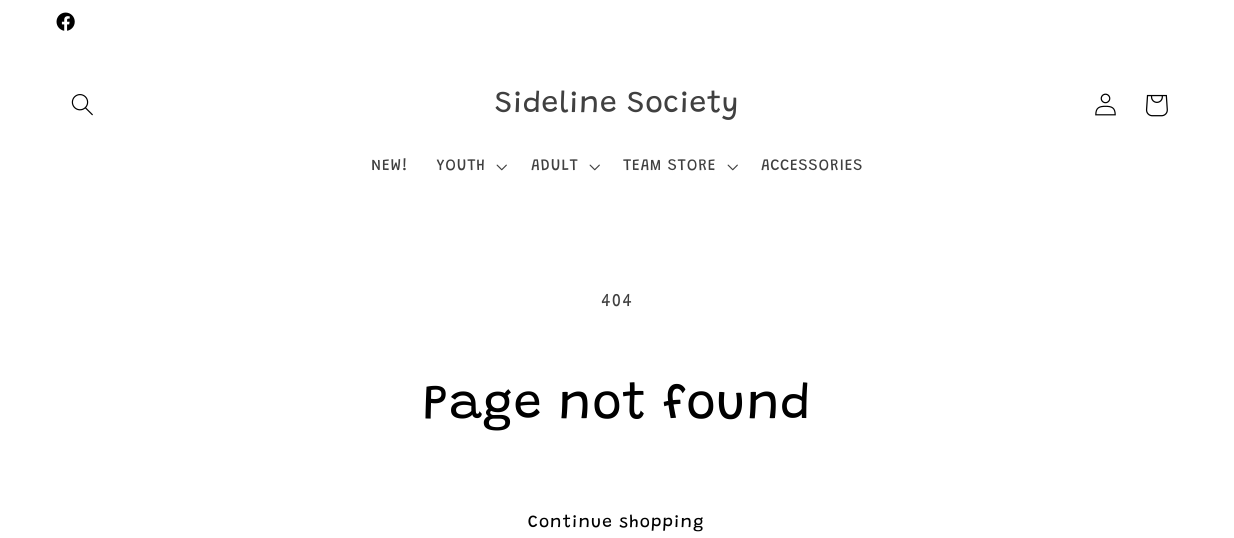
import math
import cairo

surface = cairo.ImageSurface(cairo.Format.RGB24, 1234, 538)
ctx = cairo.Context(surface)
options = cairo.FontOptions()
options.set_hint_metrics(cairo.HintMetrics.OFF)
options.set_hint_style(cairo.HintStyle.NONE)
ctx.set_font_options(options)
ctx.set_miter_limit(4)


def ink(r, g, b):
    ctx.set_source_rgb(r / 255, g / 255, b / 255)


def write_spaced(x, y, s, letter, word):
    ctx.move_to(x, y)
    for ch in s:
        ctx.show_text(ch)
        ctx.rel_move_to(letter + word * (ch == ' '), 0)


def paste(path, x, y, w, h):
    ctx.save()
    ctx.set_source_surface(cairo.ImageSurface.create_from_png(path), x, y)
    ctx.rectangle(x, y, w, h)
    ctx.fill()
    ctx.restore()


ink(255, 255, 255)
ctx.paint()
paste("pic1.png", 56, 12, 19, 19)
paste("pic2.png", 71, 94, 22, 22)
ctx.select_font_face("Grandstander")
ctx.set_font_size(30)
ink(64, 64, 64)
write_spaced(495, 112, "Sideline Society", 0.75, 0)
paste("pic3.png", 1095, 93, 21, 23)
paste("pic4.png", 1145, 94, 23, 23)
ctx.set_font_size(16)
write_spaced(371, 170, "NEW!", 0.75, 0)
write_spaced(436, 170, "YOUTH", 0.75, 0)
paste("pic5.png", 496, 164, 11, 7)
write_spaced(531, 170, "ADULT", 0.75, 0)
paste("pic5.png", 589, 164, 11, 7)
write_spaced(623, 170, "TEAM STORE", 0.75, 0)
paste("pic5.png", 727, 164, 11, 7)
write_spaced(761, 170, "ACCESSORIES", 0.75, 0)
ctx.set_font_size(18)
write_spaced(601, 306, "404", 0.75, 0)
ctx.set_font_size(50)
ink(0, 0, 0)
write_spaced(423, 418, "Page not found", 0.75, 0)
ctx.set_font_size(17.25)
write_spaced(528, 527, "Continue shopping", 1.1, 0)
surface.write_to_png("screenshot.png")
